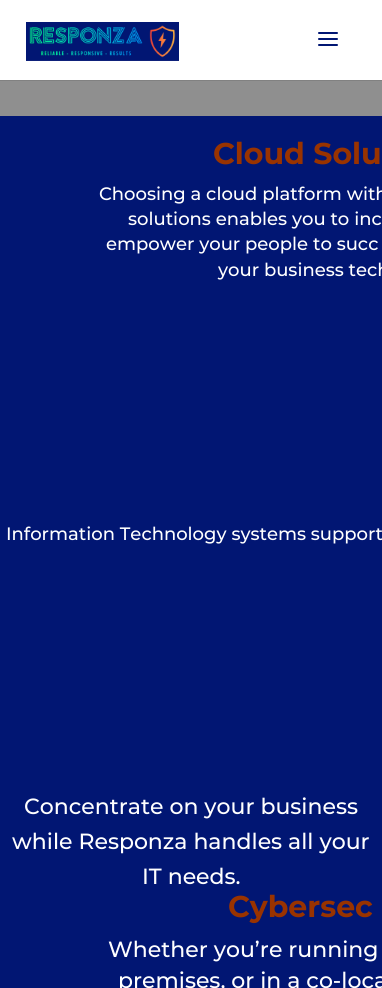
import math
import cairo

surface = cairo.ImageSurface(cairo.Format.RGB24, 382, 988)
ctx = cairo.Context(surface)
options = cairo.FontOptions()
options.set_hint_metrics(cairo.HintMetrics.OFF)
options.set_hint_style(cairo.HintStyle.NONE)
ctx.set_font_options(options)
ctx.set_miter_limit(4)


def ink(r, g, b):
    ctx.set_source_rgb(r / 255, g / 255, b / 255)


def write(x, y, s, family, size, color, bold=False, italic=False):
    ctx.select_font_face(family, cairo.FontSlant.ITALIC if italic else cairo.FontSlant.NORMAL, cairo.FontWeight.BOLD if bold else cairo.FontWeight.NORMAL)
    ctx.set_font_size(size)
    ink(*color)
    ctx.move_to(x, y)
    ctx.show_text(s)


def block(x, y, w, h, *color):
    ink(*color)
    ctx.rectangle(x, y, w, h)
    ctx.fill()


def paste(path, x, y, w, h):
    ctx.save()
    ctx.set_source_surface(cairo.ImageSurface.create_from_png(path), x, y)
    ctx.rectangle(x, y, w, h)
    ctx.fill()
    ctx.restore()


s1 = dict(family="Montserrat", size=30, color=(153, 51, 0), bold=True)
s2 = dict(family="Montserrat Medium", size=18, color=(255, 255, 255))
s3 = dict(family="Montserrat Medium", size=22, color=(255, 255, 255))

ink(143, 143, 143)
ctx.paint()
block(0, 80, 382, 1, 129, 129, 129)
block(0, 0, 382, 80, 255, 255, 255)
paste("pic1.png", 26, 22, 153, 39)
paste("pic2.png", 318, 32, 20, 14)
block(0, 116, 382, 872, 1, 22, 115)
write(213, 164, "Cloud Solu", **s1)
write(99, 200, "Choosing a cloud platform with", **s2)
write(128, 225, "solutions enables you to inc", **s2)
write(106, 250, "empower your people to succ", **s2)
write(218, 276, "your business tech", **s2)
write(6, 540, "Information Technology systems support", **s2)
write(24, 814, "Concentrate on your business", **s3)
write(12, 849, "while Responza handles all your", **s3)
write(142, 884, "IT needs.", **s3)
write(228, 917, "Cybersec", **s1)
write(108, 957, "Whether you’re running", **s3)
write(118, 988, "premises, or in a co-loca", **s3)
surface.write_to_png("screenshot.png")
